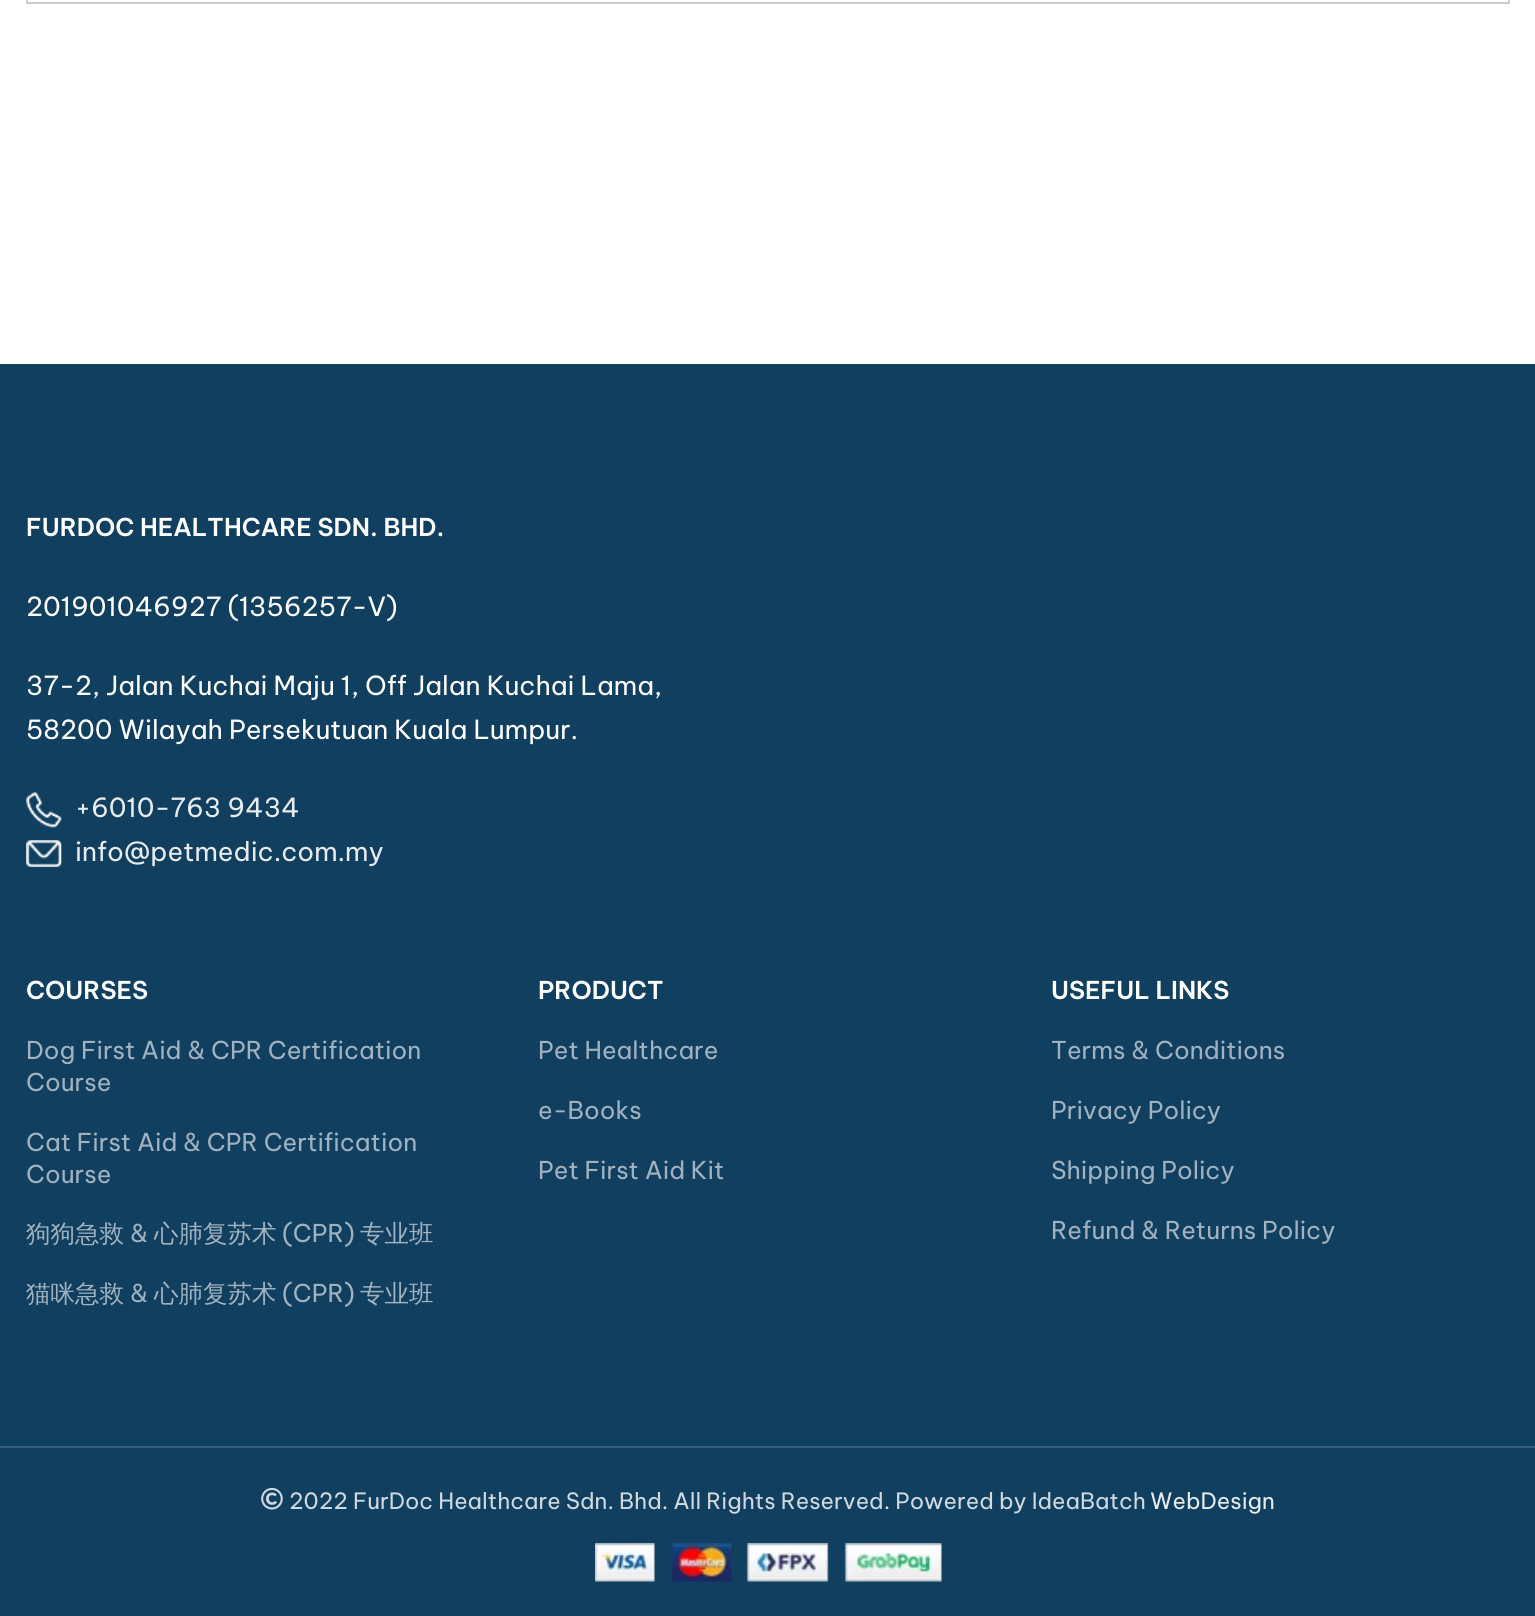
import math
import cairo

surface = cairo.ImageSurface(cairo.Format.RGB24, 1535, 1616)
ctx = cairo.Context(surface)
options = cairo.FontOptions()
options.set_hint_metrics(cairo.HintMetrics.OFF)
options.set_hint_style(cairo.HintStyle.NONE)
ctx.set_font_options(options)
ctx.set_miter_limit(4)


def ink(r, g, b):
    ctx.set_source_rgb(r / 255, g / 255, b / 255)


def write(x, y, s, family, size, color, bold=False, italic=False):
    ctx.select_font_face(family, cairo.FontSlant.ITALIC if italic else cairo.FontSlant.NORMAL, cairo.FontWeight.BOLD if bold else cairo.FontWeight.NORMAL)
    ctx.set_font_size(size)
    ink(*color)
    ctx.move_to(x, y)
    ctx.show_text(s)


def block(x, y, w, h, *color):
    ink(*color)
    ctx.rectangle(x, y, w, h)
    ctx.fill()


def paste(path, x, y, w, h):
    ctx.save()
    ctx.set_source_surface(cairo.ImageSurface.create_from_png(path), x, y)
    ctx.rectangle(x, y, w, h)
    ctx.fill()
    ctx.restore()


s1 = dict(family="Be Vietnam Pro SemiBold", size=24.5, color=(255, 255, 255))
s2 = dict(family="Be Vietnam Pro", size=26.25, color=(255, 255, 255))
s3 = dict(family="Be Vietnam Pro", size=26.25, color=(231, 236, 239))
s4 = dict(family="Be Vietnam Pro", size=24.5, color=(160, 178, 191))
s5 = dict(family="WenQuanYi Zen Hei Medium", size=24.5, color=(160, 178, 191))
s6 = dict(family="Be Vietnam Pro", size=22.4, color=(207, 217, 223))
s7 = dict(family="Be Vietnam Pro", size=22.4, color=(231, 236, 239))

ink(255, 255, 255)
ctx.paint()
ctx.rectangle(27, -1, 1482, 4)
ink(204, 204, 204)
ctx.stroke()
block(0, 364, 1535, 1252, 17, 63, 96)
write(26, 536, "FURDOC HEALTHCARE SDN. BHD.", **s1)
write(26, 616, "201901046927 (1356257-V)", **s2)
write(26, 695, "37-2, Jalan Kuchai Maju 1, Off Jalan Kuchai Lama,", **s2)
write(26, 739, "58200 Wilayah Persekutuan Kuala Lumpur.", **s2)
paste("pic1.png", 26, 792, 36, 36)
write(75, 817, "+6010-763 9434", **s3)
paste("pic2.png", 26, 840, 36, 27)
write(75, 861, "info@petmedic.com.my", **s3)
write(26, 999, "COURSES", **s1)
write(26, 1059, "Dog First Aid & CPR Certification", **s4)
write(26, 1091, "Course", **s4)
write(26, 1151, "Cat First Aid & CPR Certification", **s4)
write(26, 1183, "Course", **s4)
write(26, 1242, "狗狗急救", **s5)
write(130, 1242, "&", **s4)
write(154, 1242, "心肺复苏术", **s5)
write(282, 1242, "(CPR)", **s4)
write(360, 1242, "专业班", **s5)
write(26, 1302, "猫咪急救", **s5)
write(130, 1302, "&", **s4)
write(154, 1302, "心肺复苏术", **s5)
write(282, 1302, "(CPR)", **s4)
write(360, 1302, "专业班", **s5)
write(538, 999, "PRODUCT", **s1)
write(538, 1059, "Pet Healthcare", **s4)
write(538, 1119, "e-Books", **s4)
write(538, 1179, "Pet First Aid Kit", **s4)
write(1051, 999, "USEFUL LINKS", **s1)
write(1051, 1059, "Terms & Conditions", **s4)
write(1051, 1119, "Privacy Policy", **s4)
write(1051, 1179, "Shipping Policy", **s4)
write(1051, 1239, "Refund & Returns Policy", **s4)
block(0, 1446, 1535, 2, 53, 92, 120)
paste("pic3.png", 261, 1487, 22, 23)
write(289, 1509, "2022 FurDoc Healthcare Sdn. Bhd. All Rights Reserved. Powered by IdeaBatch", **s6)
write(1150, 1509, "WebDesign", **s7)
paste("pic4.png", 595, 1543, 347, 39)
surface.write_to_png("screenshot.png")
